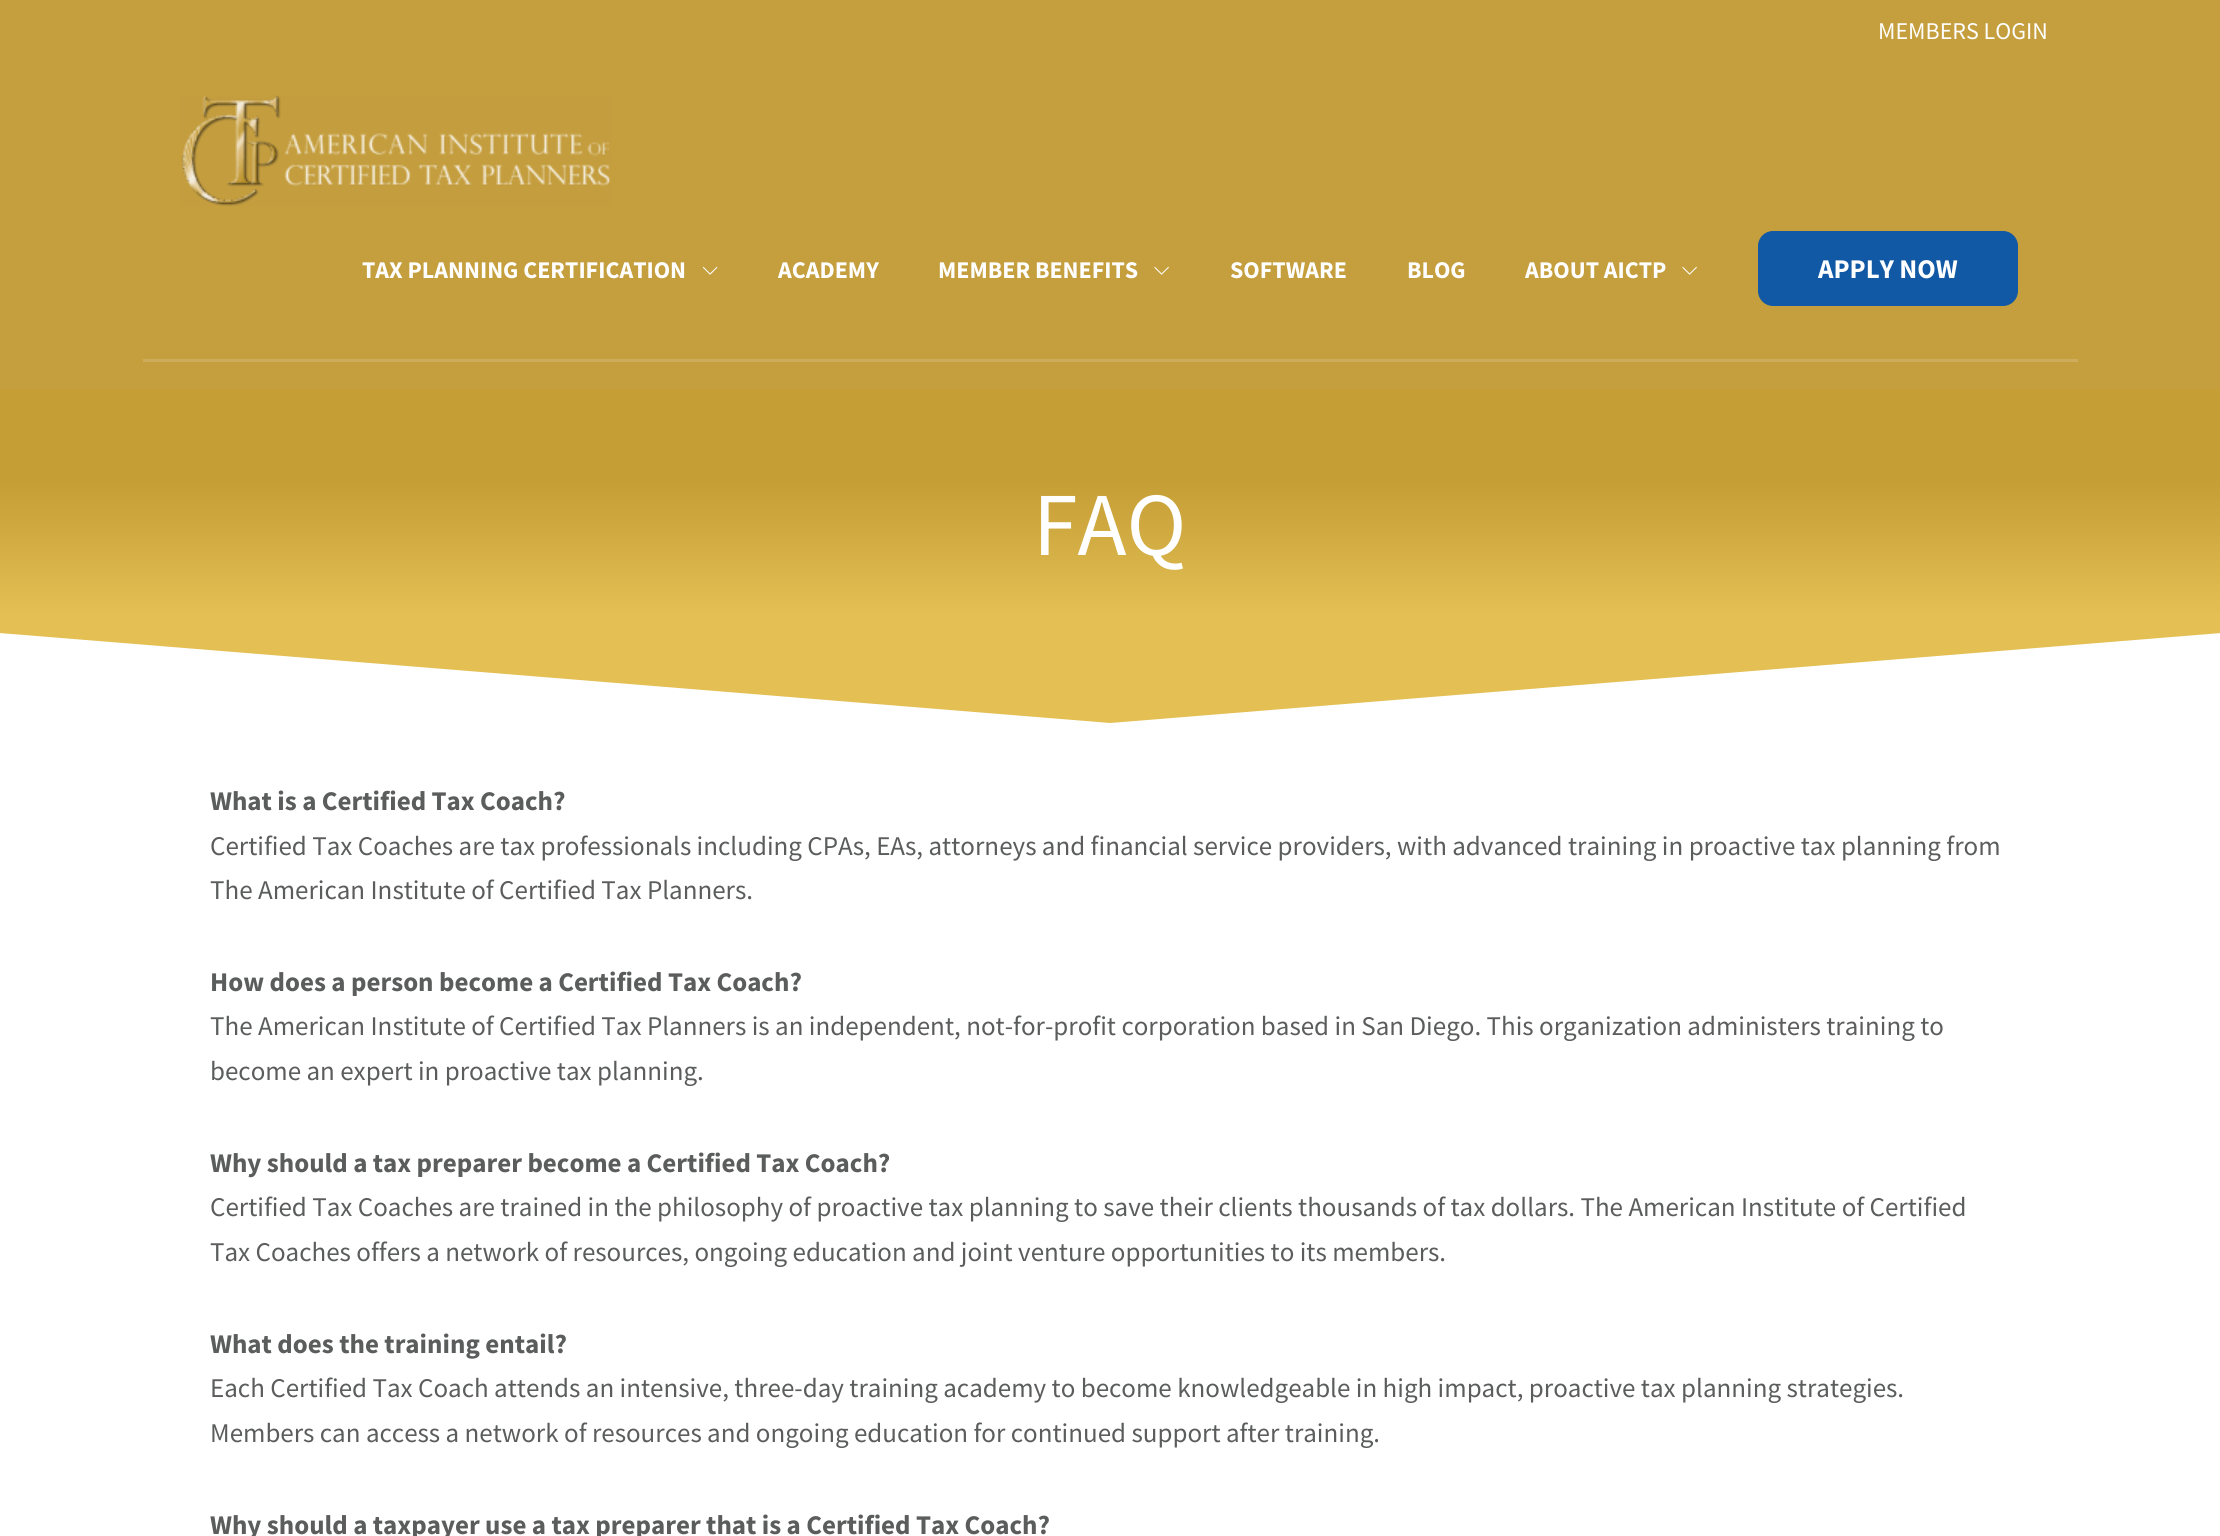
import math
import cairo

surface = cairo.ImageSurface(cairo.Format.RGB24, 2220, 1536)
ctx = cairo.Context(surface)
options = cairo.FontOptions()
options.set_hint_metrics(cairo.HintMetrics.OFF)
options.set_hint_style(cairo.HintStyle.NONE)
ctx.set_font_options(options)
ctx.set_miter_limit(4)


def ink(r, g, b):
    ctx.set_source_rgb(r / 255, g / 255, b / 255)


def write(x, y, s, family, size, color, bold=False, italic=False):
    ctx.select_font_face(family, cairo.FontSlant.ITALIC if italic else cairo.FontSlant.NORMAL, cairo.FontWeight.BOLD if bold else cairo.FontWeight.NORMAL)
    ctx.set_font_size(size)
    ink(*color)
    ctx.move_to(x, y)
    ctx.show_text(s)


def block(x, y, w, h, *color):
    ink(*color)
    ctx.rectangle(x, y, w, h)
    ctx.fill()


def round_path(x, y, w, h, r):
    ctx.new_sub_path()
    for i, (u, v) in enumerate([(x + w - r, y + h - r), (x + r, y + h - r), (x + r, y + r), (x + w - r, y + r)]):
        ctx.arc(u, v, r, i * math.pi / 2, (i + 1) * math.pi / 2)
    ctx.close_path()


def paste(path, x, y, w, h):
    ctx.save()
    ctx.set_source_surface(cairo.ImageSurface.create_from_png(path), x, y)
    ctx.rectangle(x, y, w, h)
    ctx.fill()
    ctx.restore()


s1 = dict(family="Source Sans Pro", size=24, color=(255, 255, 255))
s2 = dict(family="Source Sans Pro", size=24, color=(255, 255, 255), bold=True)
s3 = dict(family="Source Sans Pro", size=27, color=(255, 255, 255), bold=True)
s4 = dict(family="Source Sans Pro", size=90, color=(255, 255, 255))
s5 = dict(family="Source Sans Pro", size=27, color=(91, 93, 92), bold=True)
s6 = dict(family="Source Sans Pro", size=27, color=(91, 93, 92))

ink(255, 255, 255)
ctx.paint()
block(0, 0, 2220, 389, 197, 158, 62)
write(1878, 39, "MEMBERS LOGIN", **s1)
block(143, 359, 1935, 3, 205, 173, 91)
paste("pic1.png", 181, 95, 430, 111)
write(362, 278, "TAX PLANNING CERTIFICATION", **s2)
paste("pic2.png", 702, 266, 16, 9)
write(778, 278, "ACADEMY", **s2)
write(938, 278, "MEMBER BENEFITS", **s2)
paste("pic3.png", 1154, 266, 15, 9)
write(1230, 278, "SOFTWARE", **s2)
write(1407, 278, "BLOG", **s2)
write(1525, 278, "ABOUT AICTP", **s2)
paste("pic3.png", 1682, 266, 15, 9)
ink(17, 88, 165)
round_path(1758, 231, 260, 75, 15)
ctx.fill()
write(1818, 278, "APPLY NOW", **s3)
gradient = cairo.LinearGradient(1110, 388, 1110, 629)
gradient.add_color_stop_rgba(0.39, 0.773, 0.62, 0.208, 1)
gradient.add_color_stop_rgba(0.94, 0.89, 0.749, 0.329, 1)
ctx.set_source(gradient)
ctx.rectangle(0, 389, 2220, 238)
ctx.fill()
write(1033, 555, "FAQ", **s4)
ink(227, 191, 84)
ctx.new_path()
ctx.move_to(1110, 723)
ctx.line_to(-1, 633)
ctx.line_to(-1, 627)
ctx.line_to(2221, 627)
ctx.line_to(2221, 633)
ctx.close_path()
ctx.fill()
write(210, 810, "What is a Certified Tax Coach?", **s5)
write(210, 855, "Certified Tax Coaches are tax professionals including CPAs, EAs, attorneys and financial service providers, with advanced training in proactive tax planning from", **s6)
write(210, 899, "The American Institute of Certified Tax Planners.", **s6)
write(210, 991, "How does a person become a Certified Tax Coach?", **s5)
write(210, 1035, "The American Institute of Certified Tax Planners is an independent, not-for-profit corporation based in San Diego. This organization administers training to", **s6)
write(210, 1080, "become an expert in proactive tax planning.", **s6)
write(210, 1172, "Why should a tax preparer become a Certified Tax Coach?", **s5)
write(210, 1216, "Certified Tax Coaches are trained in the philosophy of proactive tax planning to save their clients thousands of tax dollars. The American Institute of Certified", **s6)
write(210, 1261, "Tax Coaches offers a network of resources, ongoing education and joint venture opportunities to its members.", **s6)
write(210, 1353, "What does the training entail?", **s5)
write(210, 1397, "Each Certified Tax Coach attends an intensive, three-day training academy to become knowledgeable in high impact, proactive tax planning strategies.", **s6)
write(210, 1442, "Members can access a network of resources and ongoing education for continued support after training.", **s6)
write(210, 1534, "Why should a taxpayer use a tax preparer that is a Certified Tax Coach?", **s5)
surface.write_to_png("screenshot.png")
